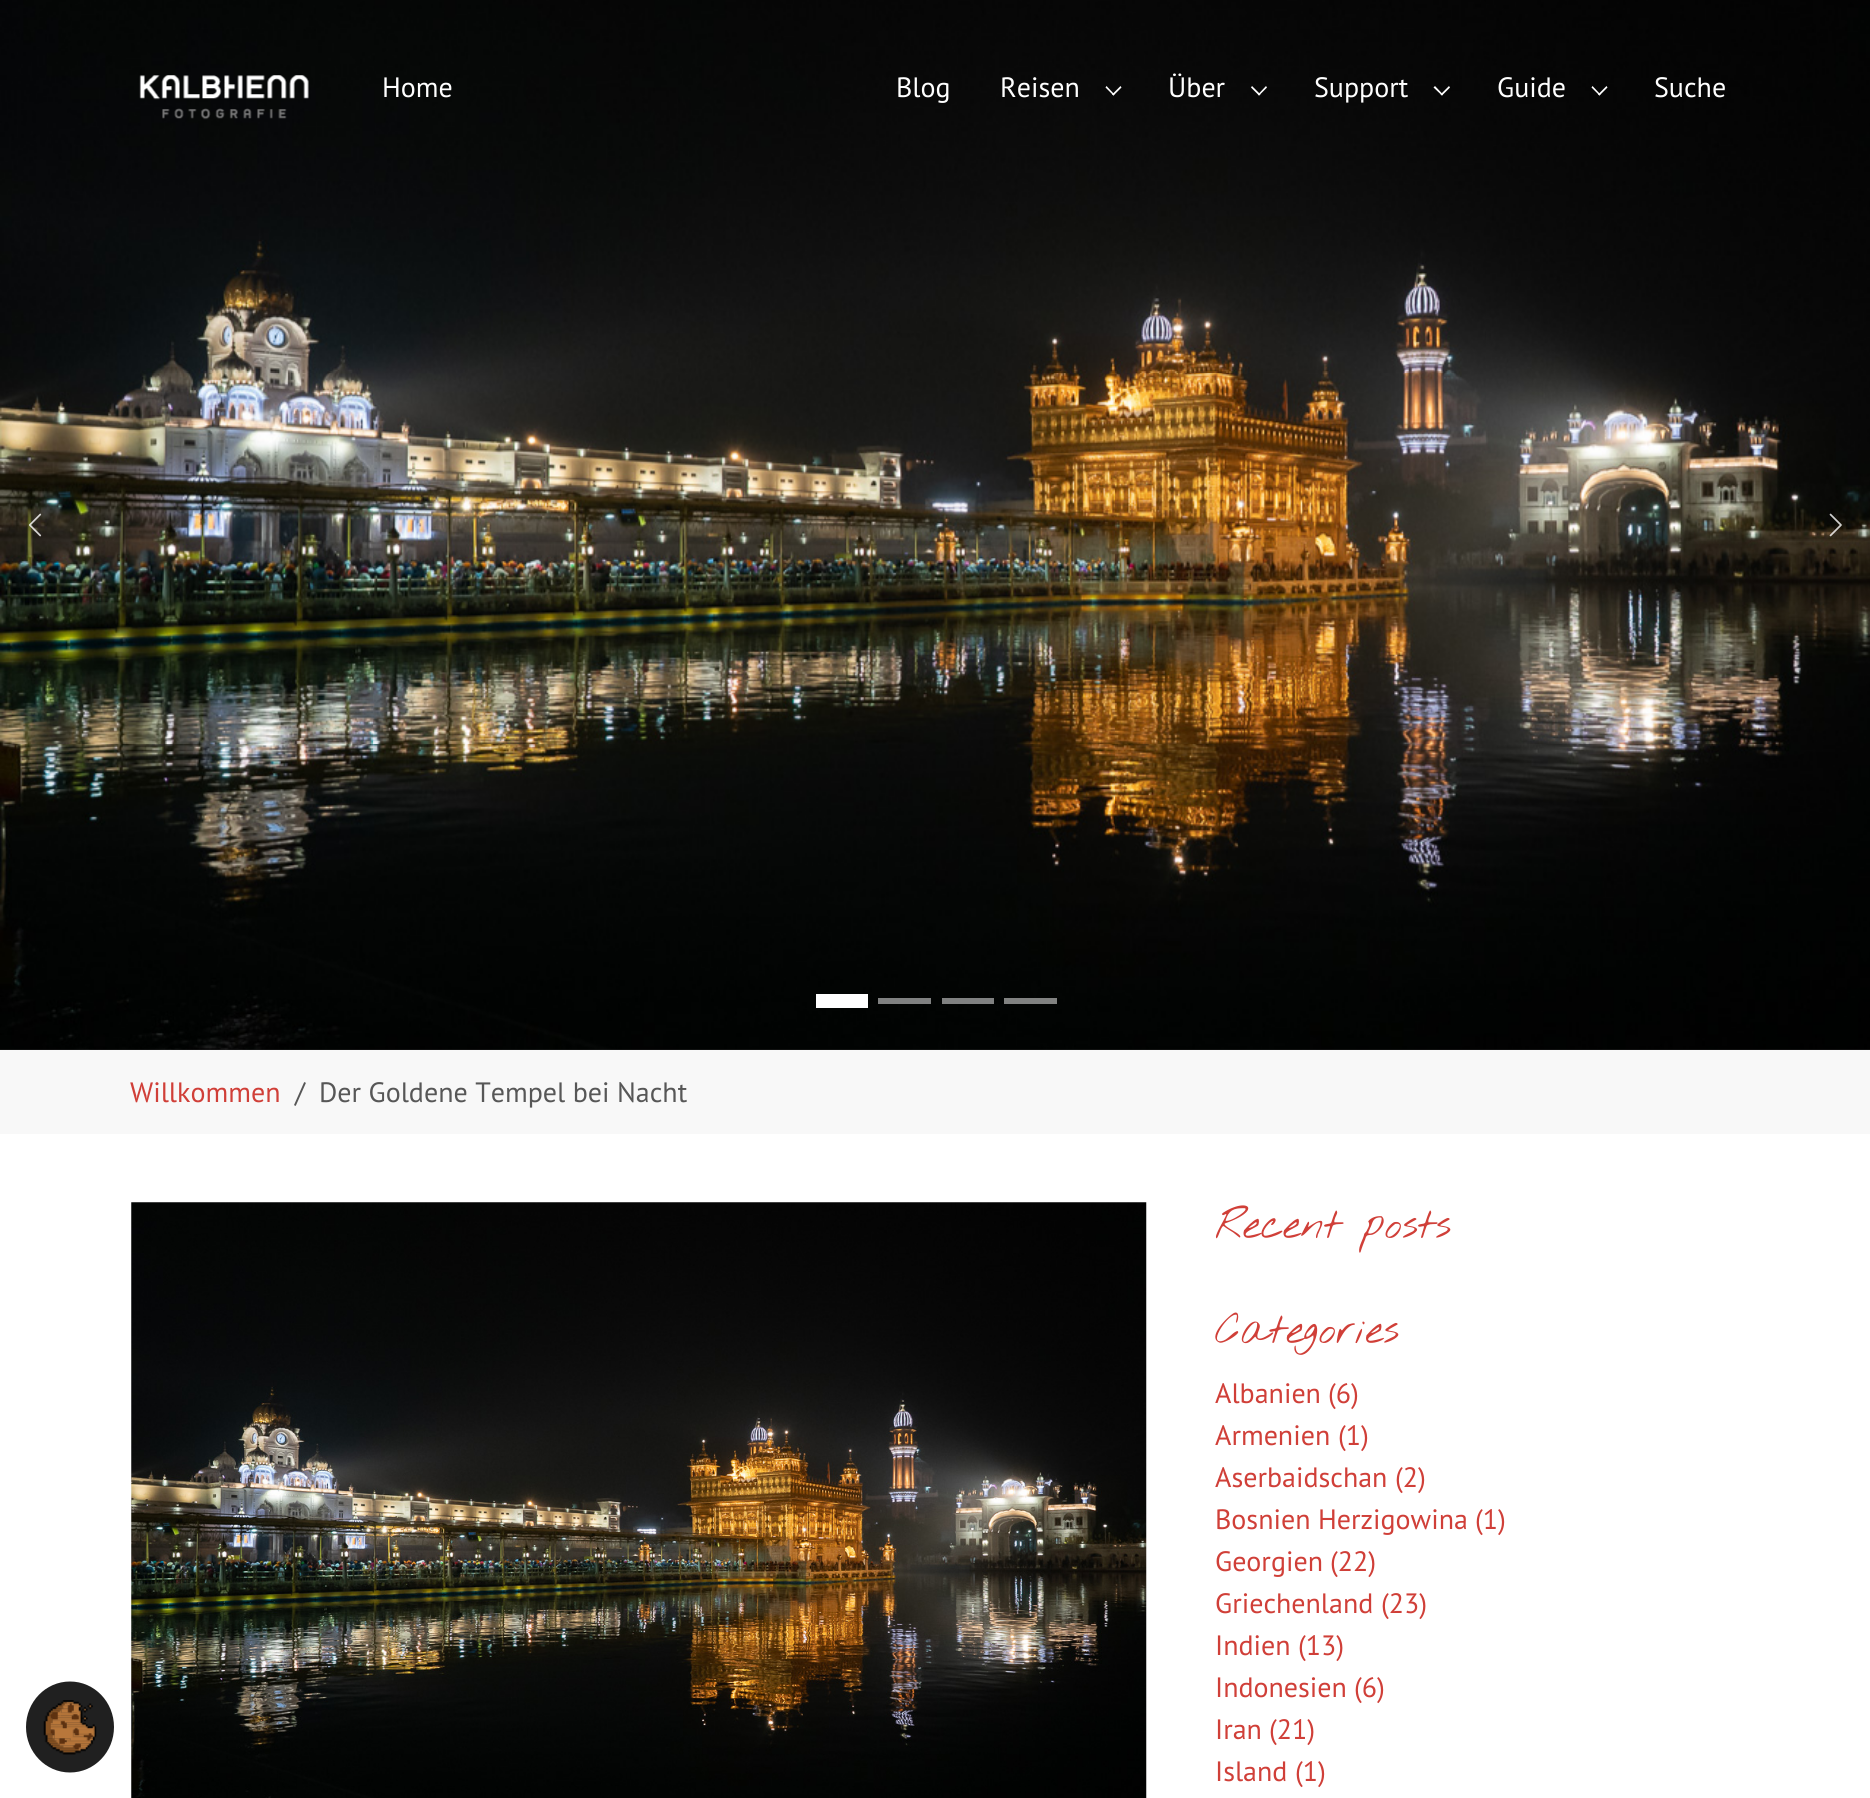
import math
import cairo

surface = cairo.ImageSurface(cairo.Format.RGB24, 1870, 1798)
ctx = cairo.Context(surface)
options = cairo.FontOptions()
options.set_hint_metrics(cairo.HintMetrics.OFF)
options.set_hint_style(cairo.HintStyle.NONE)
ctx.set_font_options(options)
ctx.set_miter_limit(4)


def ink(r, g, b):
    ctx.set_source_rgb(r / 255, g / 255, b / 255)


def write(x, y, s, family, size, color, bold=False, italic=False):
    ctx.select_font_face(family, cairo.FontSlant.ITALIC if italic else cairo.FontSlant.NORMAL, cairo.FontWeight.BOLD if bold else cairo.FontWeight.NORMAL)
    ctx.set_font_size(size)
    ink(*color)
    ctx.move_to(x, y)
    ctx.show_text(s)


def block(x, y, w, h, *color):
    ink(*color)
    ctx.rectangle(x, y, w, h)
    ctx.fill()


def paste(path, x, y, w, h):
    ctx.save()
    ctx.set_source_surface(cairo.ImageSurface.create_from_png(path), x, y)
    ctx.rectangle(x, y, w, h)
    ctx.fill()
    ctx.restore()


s1 = dict(family="PT Sans", size=28, color=(255, 255, 255))
s2 = dict(family="PT Sans", size=28, color=(208, 63, 56))
s3 = dict(family="PT Sans", size=28, color=(87, 87, 87))
s4 = dict(family="Nothing You Could Do Thin", size=41.25, color=(208, 63, 56))

ink(255, 255, 255)
ctx.paint()
ink(32, 32, 32)
ctx.new_path()
ctx.move_to(70, 1681.5)
ctx.curve_to(94.5, 1681.5, 114, 1702, 114, 1727)
ctx.curve_to(114, 1752, 94.5, 1772.5, 70, 1772.5)
ctx.curve_to(45.5, 1772.5, 26, 1752, 26, 1727)
ctx.curve_to(26, 1702, 45.5, 1681.5, 70, 1681.5)
ctx.close_path()
ctx.fill()
paste("pic1.png", 43, 1700, 54, 55)
block(0, 1049, 1870, 1, 51, 51, 51)
paste("pic2.png", 0, 0, 1870, 1050)
paste("pic3.png", 29, 513, 13, 24)
paste("pic4.png", 1829, 513, 13, 24)
ink(255, 255, 255)
ctx.new_path()
ctx.move_to(819, 994)
ctx.line_to(868, 994)
ctx.line_to(868, 1008)
ctx.line_to(816, 1008)
ctx.line_to(816, 994)
ctx.close_path()
ctx.fill()
ink(128, 129, 129)
ctx.new_path()
ctx.move_to(882, 998)
ctx.line_to(931, 998)
ctx.line_to(931, 1004)
ctx.line_to(878, 1004)
ctx.line_to(878, 998)
ctx.close_path()
ctx.fill()
ctx.new_path()
ctx.move_to(945, 998)
ctx.line_to(994, 998)
ctx.line_to(994, 1004)
ctx.line_to(942, 1004)
ctx.line_to(942, 998)
ctx.close_path()
ctx.fill()
ink(129, 130, 129)
ctx.new_path()
ctx.move_to(1008, 998)
ctx.line_to(1057, 998)
ctx.line_to(1057, 1004)
ctx.line_to(1004, 1004)
ctx.line_to(1004, 998)
ctx.close_path()
ctx.fill()
paste("pic5.png", 139, 75, 170, 45)
write(382, 97, "Home", **s1)
write(896, 97, "Blog", **s1)
write(1000, 97, "Reisen", **s1)
ctx.new_path()
ctx.move_to(1113.5, 95.5)
ctx.line_to(1105.5, 87.5)
ctx.line_to(1106.5, 86)
ctx.line_to(1114.5, 94.5)
ctx.close_path()
ctx.fill()
ctx.new_path()
ctx.move_to(1113.5, 95.5)
ctx.line_to(1112, 94.5)
ctx.line_to(1120.5, 86)
ctx.line_to(1121.5, 87.5)
ctx.close_path()
ctx.fill()
write(1168, 97, "Über", **s1)
ctx.new_path()
ctx.move_to(1259, 95.5)
ctx.line_to(1251, 87.5)
ctx.line_to(1252, 86)
ctx.line_to(1260.5, 94.5)
ctx.close_path()
ctx.fill()
ctx.new_path()
ctx.move_to(1259, 95.5)
ctx.line_to(1258, 94.5)
ctx.line_to(1266, 86)
ctx.line_to(1267, 87.5)
ctx.close_path()
ctx.fill()
write(1314, 97, "Support", **s1)
ctx.new_path()
ctx.move_to(1442, 95.5)
ctx.line_to(1433.5, 87.5)
ctx.line_to(1435, 86)
ctx.line_to(1443, 94.5)
ctx.close_path()
ctx.fill()
ctx.new_path()
ctx.move_to(1442, 95.5)
ctx.line_to(1440.5, 94.5)
ctx.line_to(1449, 86)
ctx.line_to(1450, 87.5)
ctx.close_path()
ctx.fill()
write(1497, 97, "Guide", **s1)
ctx.new_path()
ctx.move_to(1599.5, 95.5)
ctx.line_to(1591.5, 87.5)
ctx.line_to(1592.5, 86)
ctx.line_to(1600.5, 94.5)
ctx.close_path()
ctx.fill()
ctx.new_path()
ctx.move_to(1599.5, 95.5)
ctx.line_to(1598, 94.5)
ctx.line_to(1606.5, 86)
ctx.line_to(1607.5, 87.5)
ctx.close_path()
ctx.fill()
write(1654, 97, "Suche", **s1)
block(0, 1050, 1870, 84, 248, 248, 248)
write(130, 1102, "Willkommen", **s2)
write(295, 1102, "/", **s3)
write(319, 1102, "Der Goldene Tempel bei Nacht", **s3)
paste("pic6.png", 131, 1202, 1016, 596)
write(1215, 1238, "Recent posts", **s4)
write(1215, 1343, "Categories", **s4)
write(1215, 1403, "Albanien", **s2)
write(1328, 1403, "(6)", **s2)
write(1215, 1445, "Armenien", **s2)
write(1338, 1445, "(1)", **s2)
write(1215, 1487, "Aserbaidschan", **s2)
write(1395, 1487, "(2)", **s2)
write(1215, 1529, "Bosnien Herzigowina", **s2)
write(1475, 1529, "(1)", **s2)
write(1215, 1571, "Georgien", **s2)
write(1330, 1571, "(22)", **s2)
write(1215, 1613, "Griechenland", **s2)
write(1381, 1613, "(23)", **s2)
write(1215, 1655, "Indien", **s2)
write(1298, 1655, "(13)", **s2)
write(1215, 1697, "Indonesien", **s2)
write(1354, 1697, "(6)", **s2)
write(1215, 1739, "Iran", **s2)
write(1269, 1739, "(21)", **s2)
write(1215, 1781, "Island", **s2)
write(1295, 1781, "(1)", **s2)
surface.write_to_png("screenshot.png")
